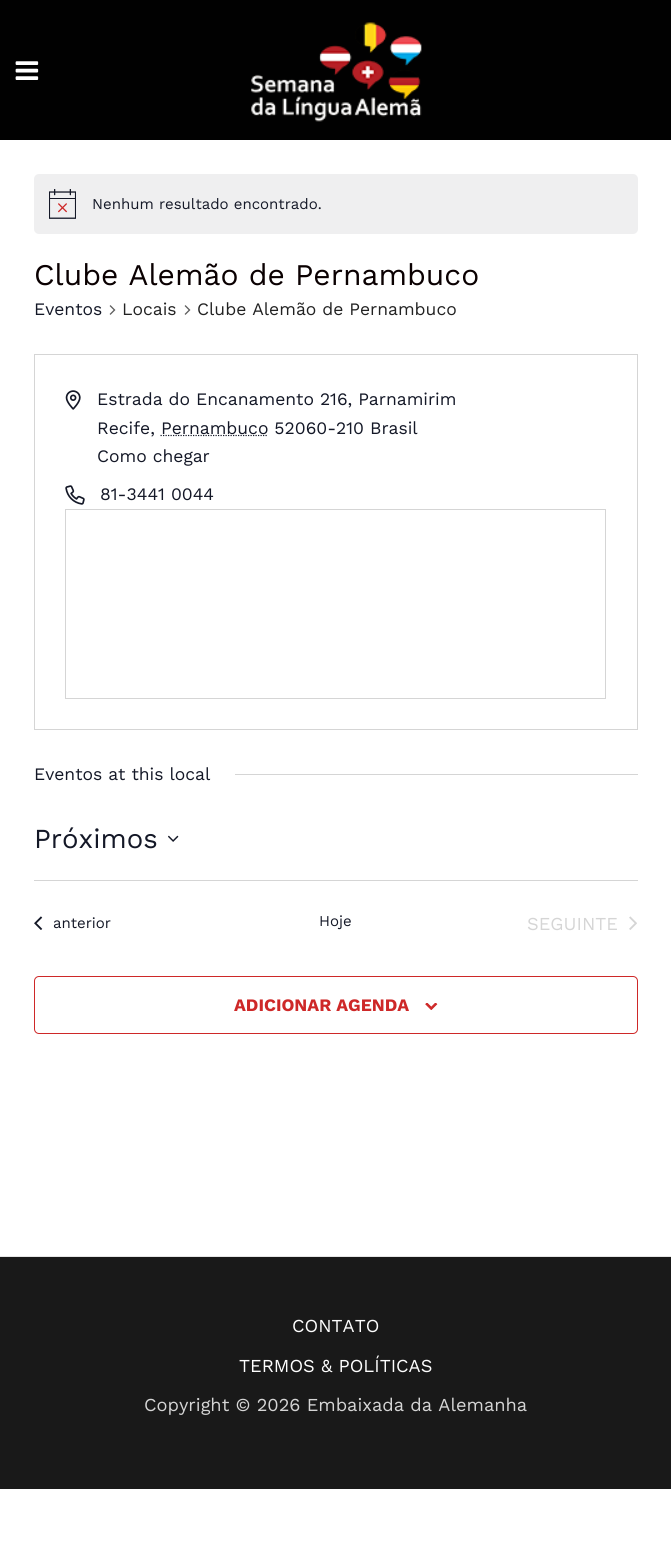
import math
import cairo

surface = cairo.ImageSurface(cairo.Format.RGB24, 671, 1558)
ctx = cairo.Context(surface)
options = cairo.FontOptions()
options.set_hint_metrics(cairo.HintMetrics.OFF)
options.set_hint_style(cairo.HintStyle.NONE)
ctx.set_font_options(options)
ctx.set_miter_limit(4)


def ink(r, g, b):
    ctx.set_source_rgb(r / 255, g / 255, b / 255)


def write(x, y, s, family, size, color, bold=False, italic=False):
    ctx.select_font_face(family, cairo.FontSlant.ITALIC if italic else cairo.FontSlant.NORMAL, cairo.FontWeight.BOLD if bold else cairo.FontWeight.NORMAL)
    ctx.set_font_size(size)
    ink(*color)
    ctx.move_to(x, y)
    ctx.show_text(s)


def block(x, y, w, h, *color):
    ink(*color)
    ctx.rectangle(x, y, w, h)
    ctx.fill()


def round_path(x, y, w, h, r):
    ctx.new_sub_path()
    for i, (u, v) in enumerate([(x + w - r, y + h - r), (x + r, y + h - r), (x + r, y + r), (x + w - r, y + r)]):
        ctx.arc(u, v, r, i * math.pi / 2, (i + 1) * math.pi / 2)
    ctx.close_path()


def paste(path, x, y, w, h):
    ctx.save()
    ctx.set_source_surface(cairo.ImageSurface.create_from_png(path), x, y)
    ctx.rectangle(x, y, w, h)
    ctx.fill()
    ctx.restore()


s1 = dict(family="Work Sans", size=15, color=(20, 24, 39))
s2 = dict(family="Work Sans", size=30, color=(10, 0, 1))
s3 = dict(family="Work Sans", size=17.5, color=(20, 24, 39))
s4 = dict(family="Work Sans", size=17.5, color=(34, 34, 34))
s5 = dict(family="Work Sans", size=27.5, color=(20, 24, 39))
s6 = dict(family="Work Sans", size=18.25, color=(213, 213, 213))
s7 = dict(family="Work Sans", size=17.5, color=(206, 40, 40), bold=True)
s8 = dict(family="Work Sans", size=18.25, color=(254, 254, 254))

ink(255, 255, 255)
ctx.paint()
block(0, 0, 671, 140, 1, 1, 1)
paste("pic1.png", 15, 61, 24, 19)
paste("pic2.png", 251, 22, 171, 100)
ink(239, 239, 240)
round_path(34, 174, 604, 60, 5)
ctx.fill()
paste("pic3.png", 49, 189, 27, 30)
write(92, 209, "Nenhum resultado encontrado.", **s1)
write(34, 285, "Clube Alemão de Pernambuco", **s2)
write(34, 315, "Eventos", **s3)
paste("pic4.png", 109, 305, 7, 10)
write(122, 315, "Locais", **s4)
paste("pic4.png", 184, 305, 7, 10)
write(197, 315, "Clube Alemão de Pernambuco", **s4)
ctx.rectangle(34.5, 354.5, 603, 375)
ink(213, 213, 213)
ctx.set_line_width(1)
ctx.stroke()
paste("pic5.png", 65, 390, 16, 20)
write(97, 405, "Estrada do Encanamento 216, Parnamirim", **s3)
write(97, 434, "Recife,", **s3)
ctx.new_path()
ctx.move_to(160.5, 435.5)
ctx.line_to(268, 435.5)
ctx.set_line_width(1.2)
ctx.set_dash([1.25, 1.25])
ctx.stroke()
write(161, 434, "Pernambuco 52060-210 Brasil", **s3)
write(97, 462, "Como chegar", **s3)
paste("pic6.png", 65, 485, 20, 20)
write(100, 500, "81-3441 0044", **s3)
ctx.rectangle(65.5, 509.5, 540, 189)
ink(213, 213, 213)
ctx.set_line_width(1)
ctx.set_dash([])
ctx.stroke()
write(34, 780, "Eventos at this local", **s3)
block(235, 774, 403, 1, 213, 213, 213)
write(34, 848, "Próximos", **s5)
paste("pic7.png", 168, 835, 11, 7)
block(34, 880, 604, 1, 213, 213, 213)
paste("pic8.png", 34, 916, 9, 14)
write(53, 928, "anterior", **s1)
write(319, 926, "Hoje", **s1)
write(527, 930, "SEGUINTE", **s6)
paste("pic9.png", 629, 916, 8, 14)
round_path(34.5, 976.5, 603, 57, 4.5)
ink(206, 40, 40)
ctx.stroke()
write(234, 1011, "ADICIONAR AGENDA", **s7)
paste("pic10.png", 425, 1003, 13, 7)
block(0, 1257, 671, 232, 25, 25, 25)
block(0, 1256, 671, 1, 230, 230, 230)
write(292, 1332, "CONTATO", **s8)
write(239, 1372, "TERMOS & POLÍTICAS", **s8)
write(144, 1411, "Copyright © 2026 Embaixada da Alemanha", **s6)
surface.write_to_png("screenshot.png")
